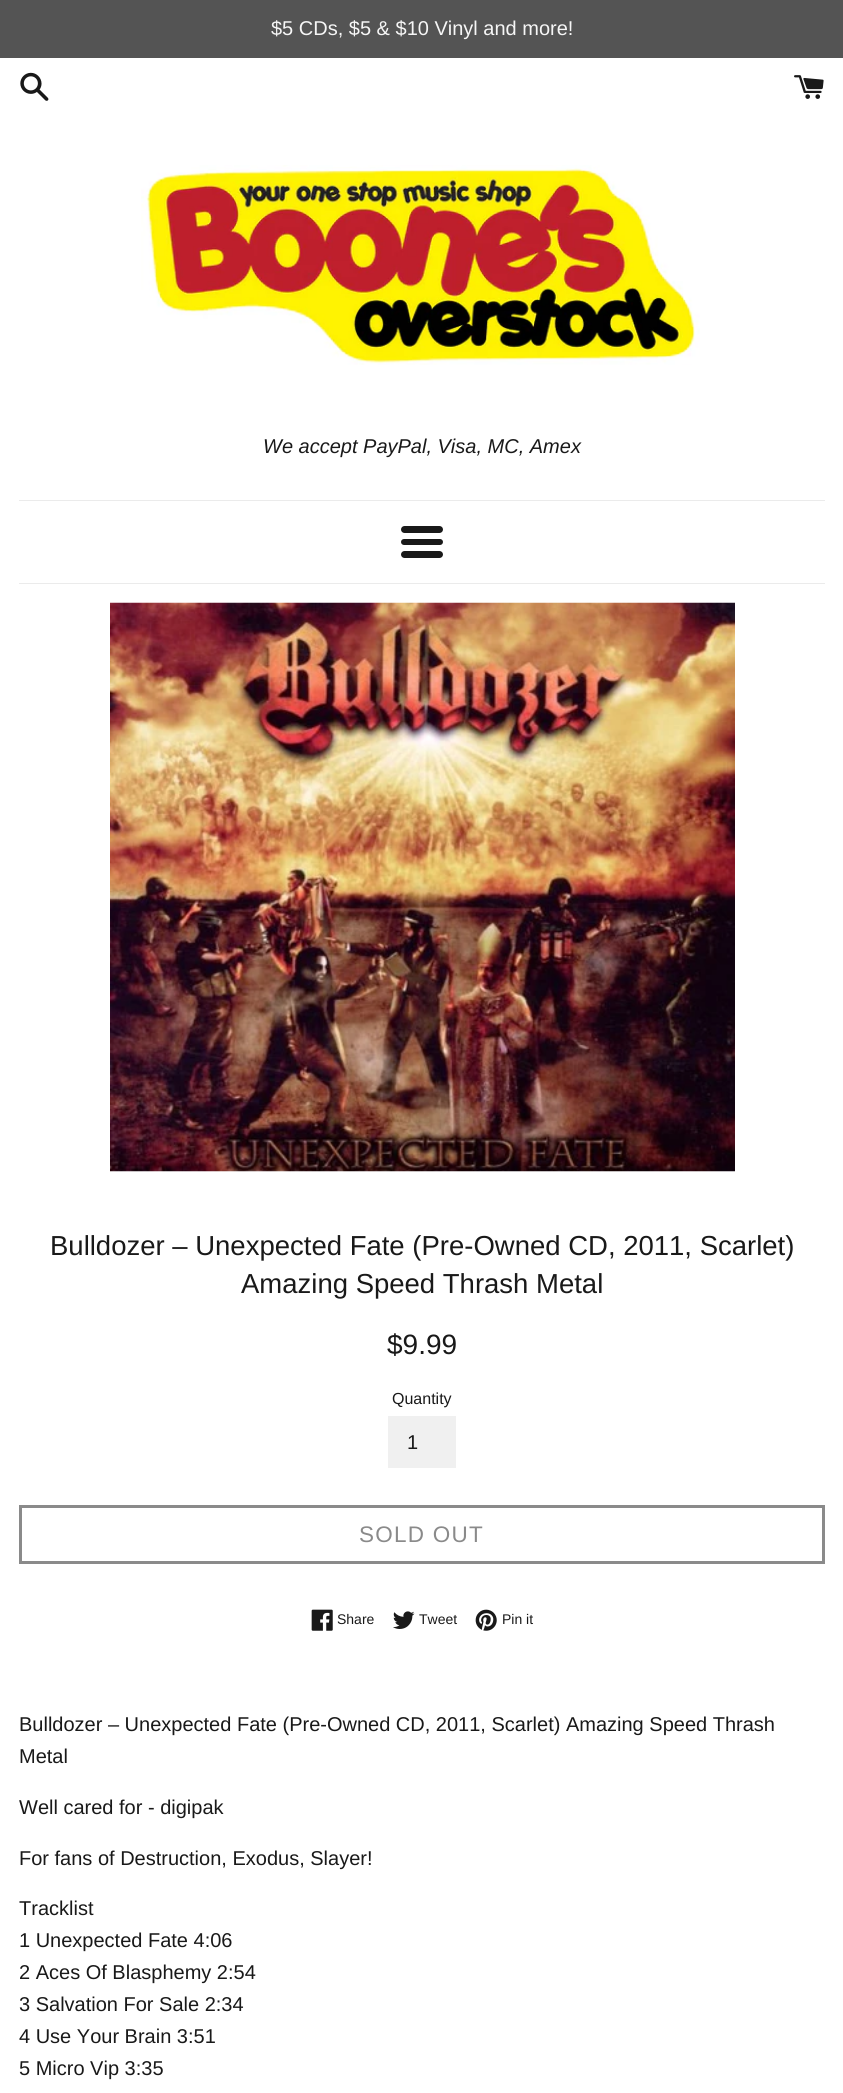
import math
import cairo

surface = cairo.ImageSurface(cairo.Format.RGB24, 843, 2093)
ctx = cairo.Context(surface)
options = cairo.FontOptions()
options.set_hint_metrics(cairo.HintMetrics.OFF)
options.set_hint_style(cairo.HintStyle.NONE)
ctx.set_font_options(options)
ctx.set_miter_limit(4)


def ink(r, g, b):
    ctx.set_source_rgb(r / 255, g / 255, b / 255)


def write(x, y, s, family, size, color, bold=False, italic=False):
    ctx.select_font_face(family, cairo.FontSlant.ITALIC if italic else cairo.FontSlant.NORMAL, cairo.FontWeight.BOLD if bold else cairo.FontWeight.NORMAL)
    ctx.set_font_size(size)
    ink(*color)
    ctx.move_to(x, y)
    ctx.show_text(s)


def write_spaced(x, y, s, letter, word):
    ctx.move_to(x, y)
    for ch in s:
        ctx.show_text(ch)
        ctx.rel_move_to(letter + word * (ch == ' '), 0)


def block(x, y, w, h, *color):
    ink(*color)
    ctx.rectangle(x, y, w, h)
    ctx.fill()


def round_path(x, y, w, h, r):
    ctx.new_sub_path()
    for i, (u, v) in enumerate([(x + w - r, y + h - r), (x + r, y + h - r), (x + r, y + r), (x + w - r, y + r)]):
        ctx.arc(u, v, r, i * math.pi / 2, (i + 1) * math.pi / 2)
    ctx.close_path()


def paste(path, x, y, w, h):
    ctx.save()
    ctx.set_source_surface(cairo.ImageSurface.create_from_png(path), x, y)
    ctx.rectangle(x, y, w, h)
    ctx.fill()
    ctx.restore()


s1 = dict(family="Liberation Sans", size=20, color=(246, 246, 246))
s2 = dict(family="Liberation Sans", size=20, color=(25, 25, 25), italic=True)
s3 = dict(family="Liberation Sans", size=27.5, color=(25, 25, 25))
s4 = dict(family="Liberation Sans", size=28, color=(25, 25, 25))
s5 = dict(family="Liberation Sans", size=16, color=(25, 25, 25))
s6 = dict(family="Liberation Sans", size=20, color=(25, 25, 25))
s7 = dict(family="Liberation Sans", size=14, color=(25, 25, 25))

ink(255, 255, 255)
ctx.paint()
block(0, 0, 843, 58, 84, 84, 84)
write(271, 35, "$5 CDs, $5 & $10 Vinyl and more!", **s1)
paste("pic1.png", 20, 72, 29, 29)
paste("pic2.png", 794, 75, 30, 24)
paste("pic3.png", 141, 165, 559, 200)
write(263, 453, "We accept PayPal, Visa, MC, Amex", **s2)
block(19, 500, 806, 1, 235, 235, 235)
ink(25, 25, 25)
round_path(401, 526, 42, 7, 3.5)
ctx.fill()
round_path(401, 539, 42, 6, 3)
ctx.fill()
round_path(401, 551, 42, 7, 3.5)
ctx.fill()
block(19, 583, 806, 1, 235, 235, 235)
paste("pic4.png", 110, 602, 625, 570)
write(50, 1255, "Bulldozer – Unexpected Fate (Pre-Owned CD, 2011, Scarlet)", **s3)
write(241, 1293, "Amazing Speed Thrash Metal", **s3)
write(387, 1354, "$9.99", **s4)
write(392, 1404, "Quantity", **s5)
block(388, 1416, 68, 52, 240, 240, 240)
write(407, 1449, "1", **s6)
ctx.rectangle(20.5, 1506.5, 803, 56)
ink(138, 138, 138)
ctx.set_line_width(3)
ctx.stroke()
ctx.set_font_size(22.5)
write_spaced(359, 1542, "SOLD OUT", 1.25, 0)
paste("pic5.png", 311, 1609, 22, 22)
write(337, 1624, "Share", **s7)
paste("pic6.png", 393, 1611, 22, 18)
write(419, 1624, "Tweet", **s7)
paste("pic7.png", 475, 1609, 22, 22)
write(502, 1624, "Pin it", **s7)
write(19, 1731, "Bulldozer – Unexpected Fate (Pre-Owned CD, 2011, Scarlet) Amazing Speed Thrash", **s6)
write(19, 1763, "Metal", **s6)
write(19, 1814, "Well cared for - digipak", **s6)
write(19, 1865, "For fans of Destruction, Exodus, Slayer!", **s6)
write(19, 1915, "Tracklist", **s6)
write(19, 1947, "1 Unexpected Fate 4:06", **s6)
write(19, 1979, "2 Aces Of Blasphemy 2:54", **s6)
write(19, 2011, "3 Salvation For Sale 2:34", **s6)
write(19, 2043, "4 Use Your Brain 3:51", **s6)
write(19, 2075, "5 Micro Vip 3:35", **s6)
surface.write_to_png("screenshot.png")
